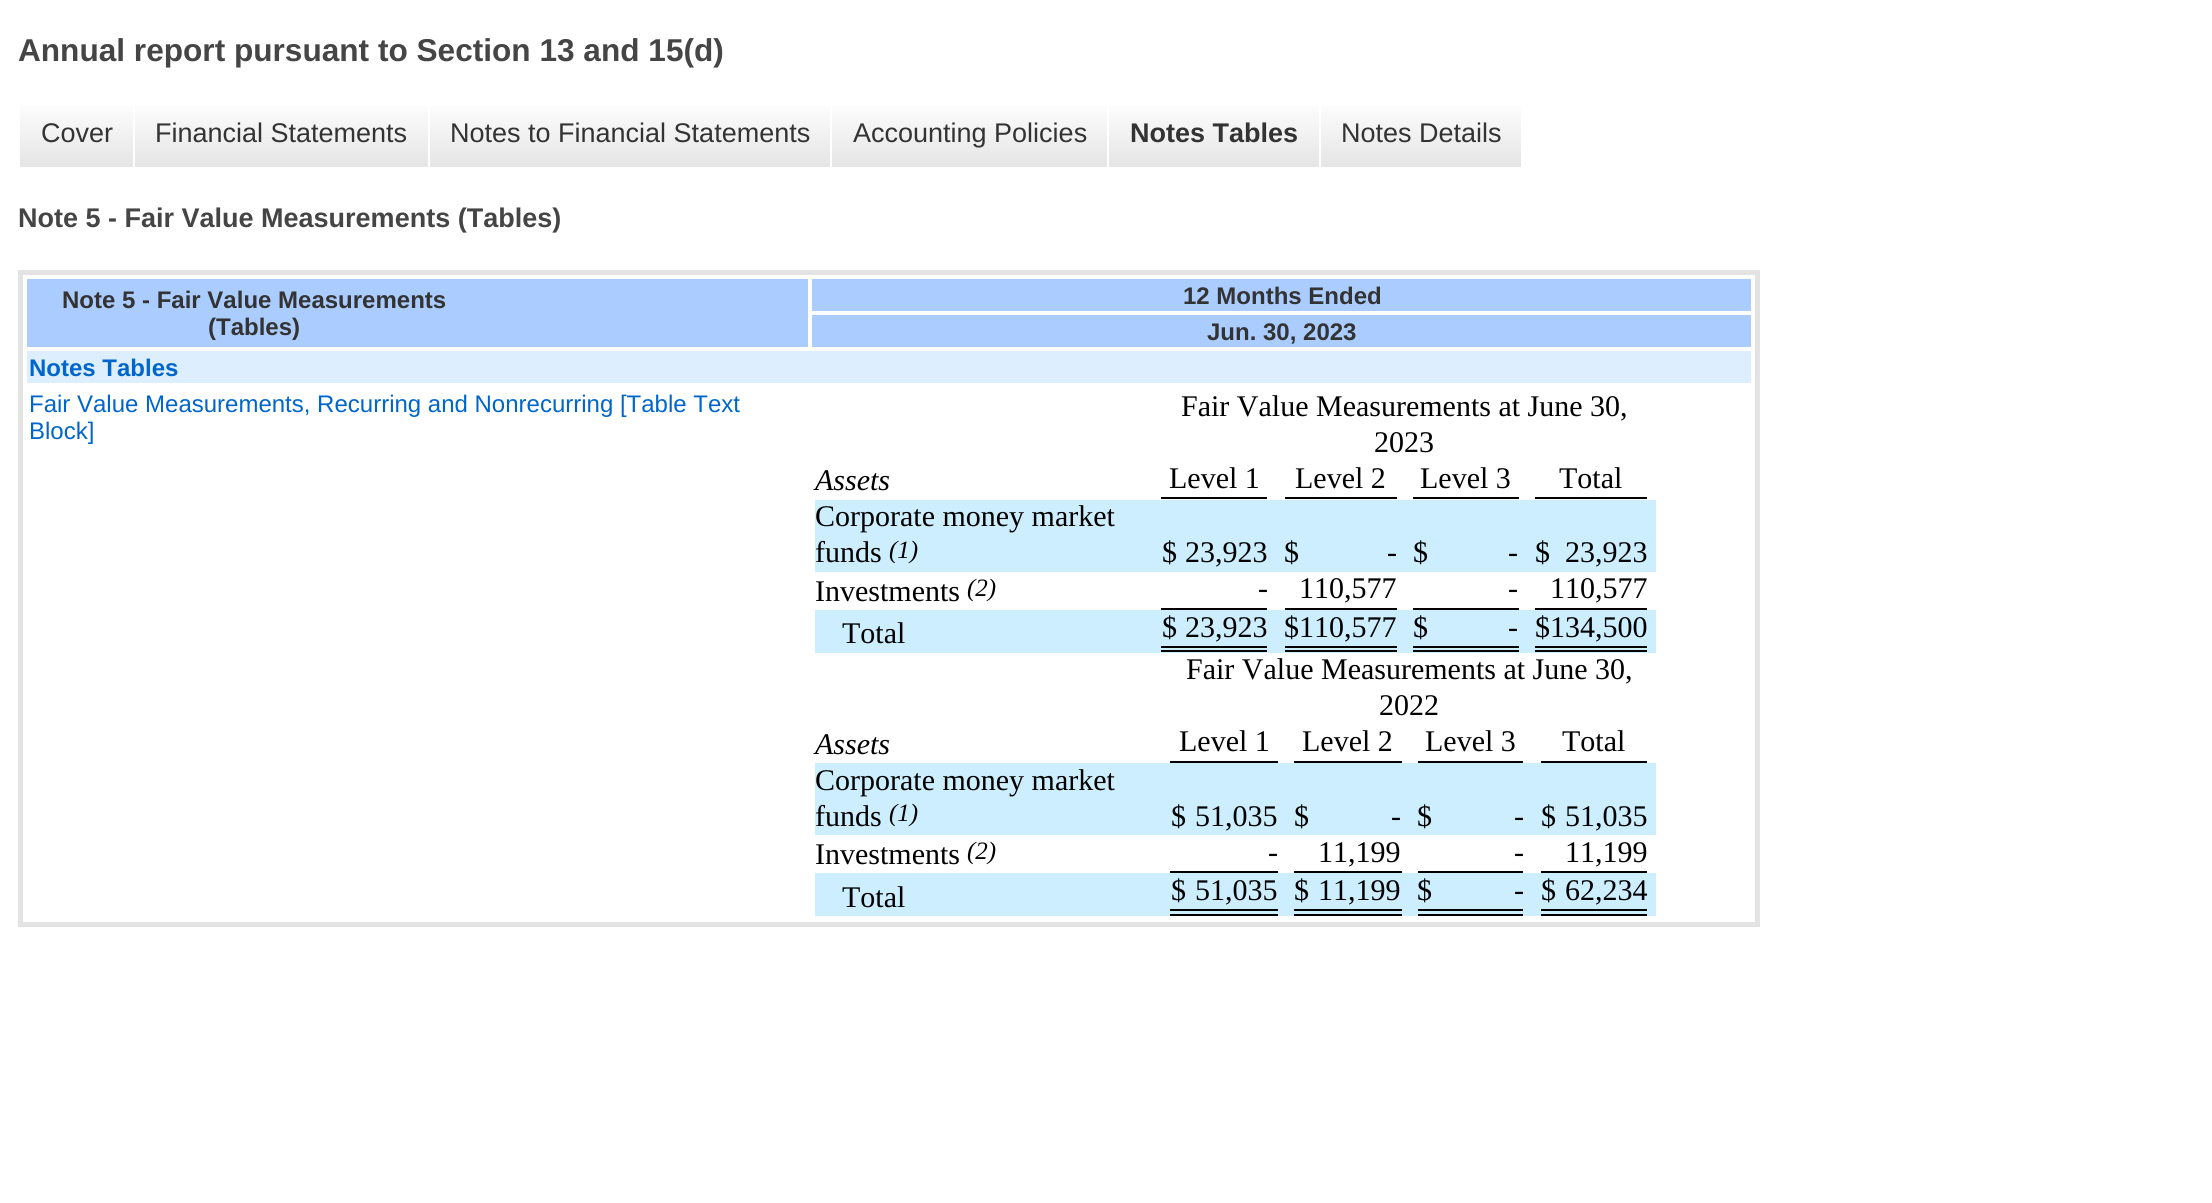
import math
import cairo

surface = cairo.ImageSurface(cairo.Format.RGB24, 2212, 1203)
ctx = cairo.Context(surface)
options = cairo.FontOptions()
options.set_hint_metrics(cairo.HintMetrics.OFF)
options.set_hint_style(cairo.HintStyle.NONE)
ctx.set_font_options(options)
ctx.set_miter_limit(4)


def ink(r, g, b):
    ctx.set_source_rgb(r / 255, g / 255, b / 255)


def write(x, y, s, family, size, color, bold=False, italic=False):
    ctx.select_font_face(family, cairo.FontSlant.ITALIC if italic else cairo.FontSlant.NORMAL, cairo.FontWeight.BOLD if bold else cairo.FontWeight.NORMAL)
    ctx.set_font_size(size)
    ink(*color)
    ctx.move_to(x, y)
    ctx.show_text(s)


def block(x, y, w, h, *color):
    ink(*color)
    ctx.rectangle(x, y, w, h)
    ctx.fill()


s1 = dict(family="Liberation Sans", size=31.6, color=(69, 69, 69), bold=True)
s2 = dict(family="Liberation Sans", size=27, color=(51, 51, 51))
s3 = dict(family="Liberation Sans", size=27, color=(51, 51, 51), bold=True)
s4 = dict(family="Liberation Sans", size=27, color=(69, 69, 69), bold=True)
s5 = dict(family="Liberation Sans", size=24, color=(51, 51, 51), bold=True)
s6 = dict(family="Liberation Sans", size=24, color=(0, 102, 204), bold=True)
s7 = dict(family="Liberation Sans", size=24, color=(0, 102, 204))
s8 = dict(family="Liberation Serif", size=30, color=(0, 0, 0))
s9 = dict(family="Liberation Serif", size=30, color=(0, 0, 0), italic=True)
s10 = dict(family="Liberation Serif", size=25, color=(0, 0, 0), italic=True)

ink(255, 255, 255)
ctx.paint()
write(18, 61, "Annual report pursuant to Section 13 and 15(d)", **s1)
gradient = cairo.LinearGradient(77, 99, 77, 167)
gradient.add_color_stop_rgba(0, 1, 1, 1, 1)
gradient.add_color_stop_rgba(1, 0.898, 0.898, 0.898, 1)
ctx.set_source(gradient)
ctx.rectangle(20, 106, 113, 61)
ctx.fill()
write(41, 142, "Cover", **s2)
gradient = cairo.LinearGradient(281, 99, 281, 167)
gradient.add_color_stop_rgba(0, 1, 1, 1, 1)
gradient.add_color_stop_rgba(1, 0.898, 0.898, 0.898, 1)
ctx.set_source(gradient)
ctx.rectangle(135, 106, 293, 61)
ctx.fill()
write(155, 142, "Financial Statements", **s2)
gradient = cairo.LinearGradient(630, 99, 630, 167)
gradient.add_color_stop_rgba(0, 1, 1, 1, 1)
gradient.add_color_stop_rgba(1, 0.898, 0.898, 0.898, 1)
ctx.set_source(gradient)
ctx.rectangle(430, 106, 400, 61)
ctx.fill()
write(450, 142, "Notes to Financial Statements", **s2)
gradient = cairo.LinearGradient(970, 99, 970, 167)
gradient.add_color_stop_rgba(0, 1, 1, 1, 1)
gradient.add_color_stop_rgba(1, 0.898, 0.898, 0.898, 1)
ctx.set_source(gradient)
ctx.rectangle(832, 106, 275, 61)
ctx.fill()
write(853, 142, "Accounting Policies", **s2)
gradient = cairo.LinearGradient(1214, 99, 1214, 167)
gradient.add_color_stop_rgba(0, 1, 1, 1, 1)
gradient.add_color_stop_rgba(1, 0.898, 0.898, 0.898, 1)
ctx.set_source(gradient)
ctx.rectangle(1109, 106, 210, 61)
ctx.fill()
write(1130, 142, "Notes Tables", **s3)
gradient = cairo.LinearGradient(1421, 99, 1421, 167)
gradient.add_color_stop_rgba(0, 1, 1, 1, 1)
gradient.add_color_stop_rgba(1, 0.898, 0.898, 0.898, 1)
ctx.set_source(gradient)
ctx.rectangle(1321, 106, 200, 61)
ctx.fill()
write(1341, 142, "Notes Details", **s2)
write(18, 227, "Note 5 - Fair Value Measurements (Tables)", **s4)
ctx.rectangle(20.5, 272.5, 1737, 652)
ink(227, 227, 227)
ctx.set_line_width(5)
ctx.stroke()
block(27, 279, 781, 68, 170, 204, 255)
write(62, 308, "Note 5 - Fair Value Measurements", **s5)
write(208, 335, "(Tables)", **s5)
block(812, 279, 939, 32, 170, 204, 255)
write(1183, 304, "12 Months Ended", **s5)
block(812, 315, 939, 32, 170, 204, 255)
write(1207, 340, "Jun. 30, 2023", **s5)
block(27, 351, 1724, 32, 221, 238, 255)
write(29, 376, "Notes Tables", **s6)
write(29, 412, "Fair Value Measurements, Recurring and Nonrecurring [Table Text", **s7)
write(29, 439, "Block]", **s7)
write(1181, 416, "Fair Value Measurements at June 30,", **s8)
write(1374, 452, "2023", **s8)
write(815, 490, "Assets", **s9)
block(1161, 497, 106, 2, 0, 0, 0)
write(1169, 488, "Level 1", **s8)
block(1285, 497, 112, 2, 0, 0, 0)
write(1295, 488, "Level 2", **s8)
block(1413, 497, 106, 2, 0, 0, 0)
write(1420, 488, "Level 3", **s8)
block(1535, 497, 112, 2, 0, 0, 0)
write(1559, 488, "Total", **s8)
block(815, 500, 841, 72, 204, 238, 255)
write(815, 526, "Corporate money market", **s8)
write(815, 562, "funds", **s8)
write(889, 558, "(1)", **s10)
write(1162, 562, "$", **s8)
write(1185, 562, "23,923", **s8)
write(1284, 562, "$", **s8)
write(1387, 562, "-", **s8)
write(1413, 562, "$", **s8)
write(1508, 562, "-", **s8)
write(1535, 562, "$", **s8)
write(1565, 562, "23,923", **s8)
write(815, 601, "Investments", **s8)
write(967, 596, "(2)", **s10)
write(1258, 598, "-", **s8)
write(1299, 598, "110,577", **s8)
write(1508, 598, "-", **s8)
write(1550, 598, "110,577", **s8)
block(1161, 608, 106, 2, 0, 0, 0)
block(1285, 608, 112, 2, 0, 0, 0)
block(1413, 608, 106, 2, 0, 0, 0)
block(1535, 608, 112, 2, 0, 0, 0)
block(815, 610, 841, 43, 204, 238, 255)
write(842, 643, "Total", **s8)
block(1161, 646, 106, 2, 0, 0, 0)
block(1161, 650, 106, 2, 0, 0, 0)
write(1162, 637, "$", **s8)
write(1185, 637, "23,923", **s8)
block(1285, 646, 112, 2, 0, 0, 0)
block(1285, 650, 112, 2, 0, 0, 0)
write(1284, 637, "$110,577", **s8)
block(1413, 646, 106, 2, 0, 0, 0)
block(1413, 650, 106, 2, 0, 0, 0)
write(1413, 637, "$", **s8)
write(1508, 637, "-", **s8)
block(1535, 646, 112, 2, 0, 0, 0)
block(1535, 650, 112, 2, 0, 0, 0)
write(1535, 637, "$134,500", **s8)
write(1186, 679, "Fair Value Measurements at June 30,", **s8)
write(1379, 715, "2022", **s8)
write(815, 754, "Assets", **s9)
block(1170, 761, 108, 2, 0, 0, 0)
write(1179, 751, "Level 1", **s8)
block(1294, 761, 108, 2, 0, 0, 0)
write(1302, 751, "Level 2", **s8)
block(1418, 761, 105, 2, 0, 0, 0)
write(1425, 751, "Level 3", **s8)
block(1541, 761, 106, 2, 0, 0, 0)
write(1562, 751, "Total", **s8)
block(815, 763, 841, 72, 204, 238, 255)
write(815, 790, "Corporate money market", **s8)
write(815, 826, "funds", **s8)
write(889, 821, "(1)", **s10)
write(1171, 826, "$", **s8)
write(1195, 826, "51,035", **s8)
write(1294, 826, "$", **s8)
write(1391, 826, "-", **s8)
write(1417, 826, "$", **s8)
write(1514, 826, "-", **s8)
write(1541, 826, "$", **s8)
write(1565, 826, "51,035", **s8)
write(815, 864, "Investments", **s8)
write(967, 859, "(2)", **s10)
write(1268, 862, "-", **s8)
write(1318, 862, "11,199", **s8)
write(1514, 862, "-", **s8)
write(1565, 862, "11,199", **s8)
block(1170, 871, 108, 2, 0, 0, 0)
block(1294, 871, 108, 2, 0, 0, 0)
block(1418, 871, 105, 2, 0, 0, 0)
block(1541, 871, 106, 2, 0, 0, 0)
block(815, 873, 841, 43, 204, 238, 255)
write(842, 907, "Total", **s8)
block(1170, 909, 108, 2, 0, 0, 0)
block(1170, 914, 108, 2, 0, 0, 0)
write(1171, 900, "$", **s8)
write(1195, 900, "51,035", **s8)
block(1294, 909, 108, 2, 0, 0, 0)
block(1294, 914, 108, 2, 0, 0, 0)
write(1294, 900, "$", **s8)
write(1318, 900, "11,199", **s8)
block(1418, 909, 105, 2, 0, 0, 0)
block(1418, 914, 105, 2, 0, 0, 0)
write(1417, 900, "$", **s8)
write(1514, 900, "-", **s8)
block(1541, 909, 106, 2, 0, 0, 0)
block(1541, 914, 106, 2, 0, 0, 0)
write(1541, 900, "$", **s8)
write(1565, 900, "62,234", **s8)
surface.write_to_png("screenshot.png")
